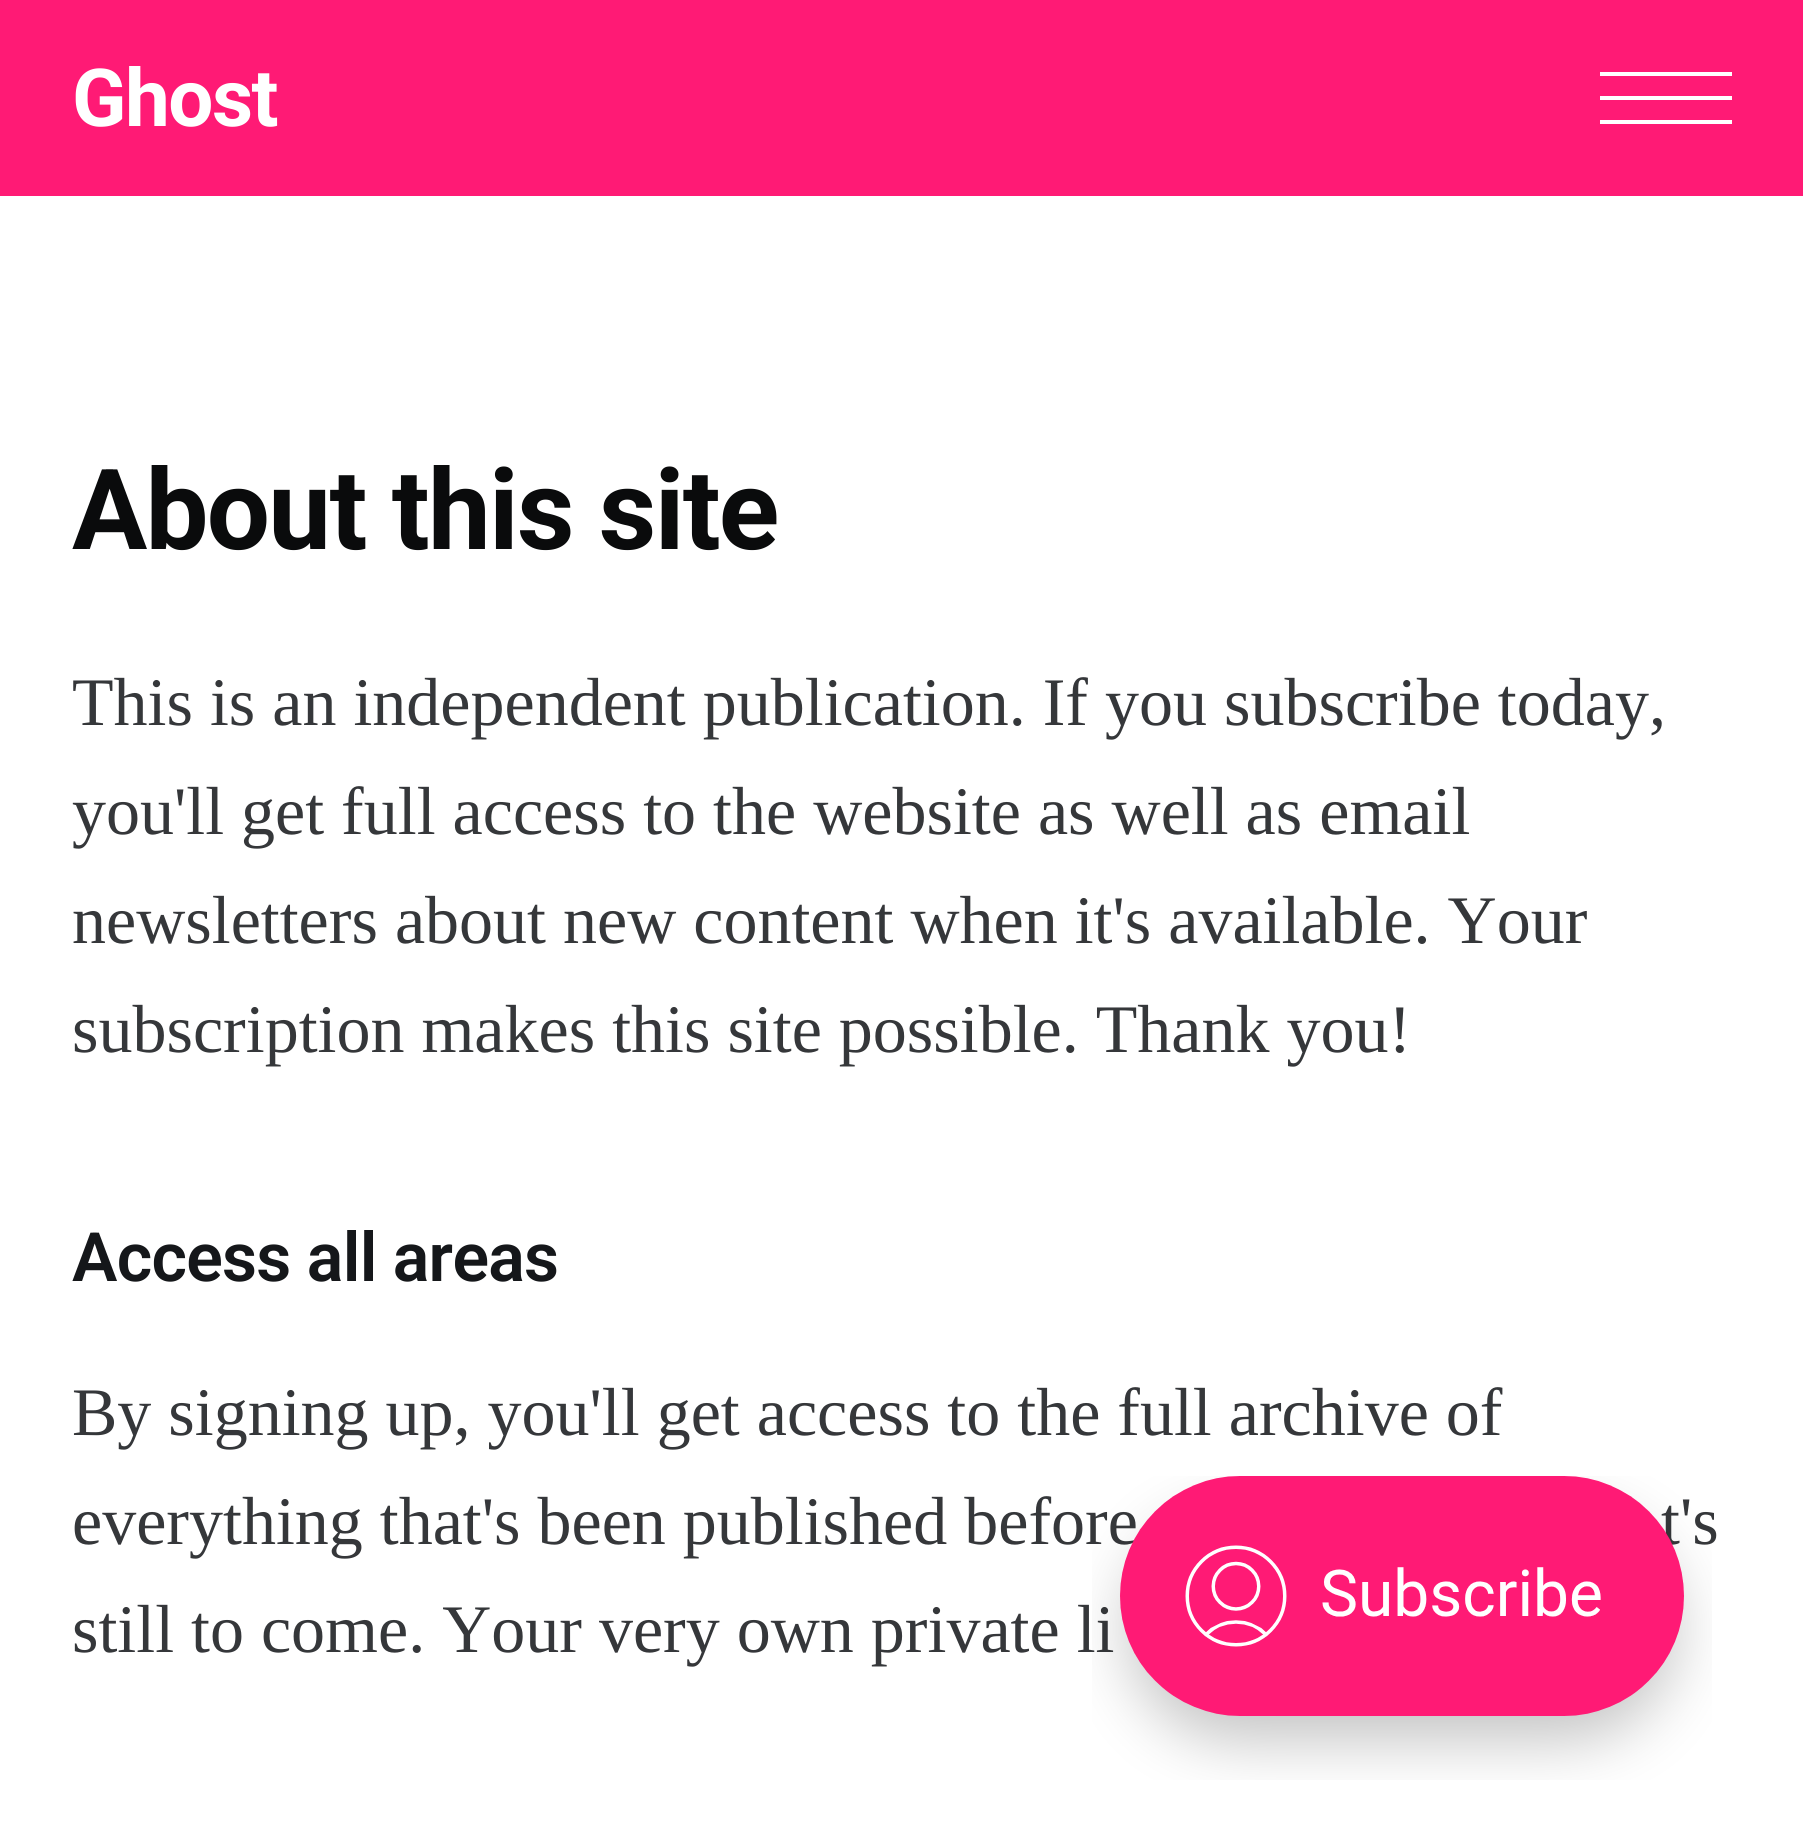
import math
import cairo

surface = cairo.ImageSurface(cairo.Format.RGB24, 1803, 1827)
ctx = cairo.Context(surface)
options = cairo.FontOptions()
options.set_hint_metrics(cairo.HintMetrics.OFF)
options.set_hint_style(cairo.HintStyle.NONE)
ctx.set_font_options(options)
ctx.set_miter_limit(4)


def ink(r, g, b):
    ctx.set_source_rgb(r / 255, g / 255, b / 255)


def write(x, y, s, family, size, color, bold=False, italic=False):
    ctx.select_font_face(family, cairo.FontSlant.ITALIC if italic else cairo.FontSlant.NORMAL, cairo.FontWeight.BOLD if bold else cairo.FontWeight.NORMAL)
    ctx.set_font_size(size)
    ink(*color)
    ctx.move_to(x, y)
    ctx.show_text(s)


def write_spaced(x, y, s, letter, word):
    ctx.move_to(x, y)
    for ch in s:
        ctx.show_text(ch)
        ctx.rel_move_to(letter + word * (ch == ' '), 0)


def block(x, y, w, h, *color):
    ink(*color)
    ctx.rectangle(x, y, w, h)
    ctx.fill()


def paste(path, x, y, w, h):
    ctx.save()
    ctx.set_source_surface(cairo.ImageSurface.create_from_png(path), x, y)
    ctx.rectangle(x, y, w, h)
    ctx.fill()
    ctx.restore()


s1 = dict(family="Liberation Serif", size=68, color=(53, 55, 58))

ink(255, 255, 255)
ctx.paint()
block(0, 0, 1803, 196, 255, 26, 117)
ctx.select_font_face("Roboto", cairo.FontSlant.NORMAL, cairo.FontWeight.BOLD)
ctx.set_font_size(80)
ink(255, 255, 255)
write_spaced(72, 126, "Ghost", -1.5, 0)
block(1600, 72, 132, 4, 255, 255, 255)
block(1600, 120, 132, 4, 255, 255, 255)
block(1600, 96, 132, 4, 255, 255, 255)
ctx.set_font_size(112)
ink(10, 11, 12)
write_spaced(72, 549, "About this site", -1.7, 0)
write(72, 725, "This is an independent publication. If you subscribe today,", **s1)
write(72, 834, "you'll get full access to the website as well as email", **s1)
write(72, 943, "newsletters about new content when it's available. Your", **s1)
write(72, 1052, "subscription makes this site possible. Thank you!", **s1)
ctx.select_font_face("Roboto SemiBold")
ink(21, 23, 26)
write_spaced(72, 1281, "Access all areas", -0.7, 0)
write(72, 1435, "By signing up, you'll get access to the full archive of", **s1)
write(72, 1544, "everything that's been published before", **s1)
write(1661, 1544, "t's", **s1)
write(72, 1652, "still to come. Your very own private li", **s1)
paste("pic1.png", 1092, 1476, 620, 304)
surface.write_to_png("screenshot.png")
